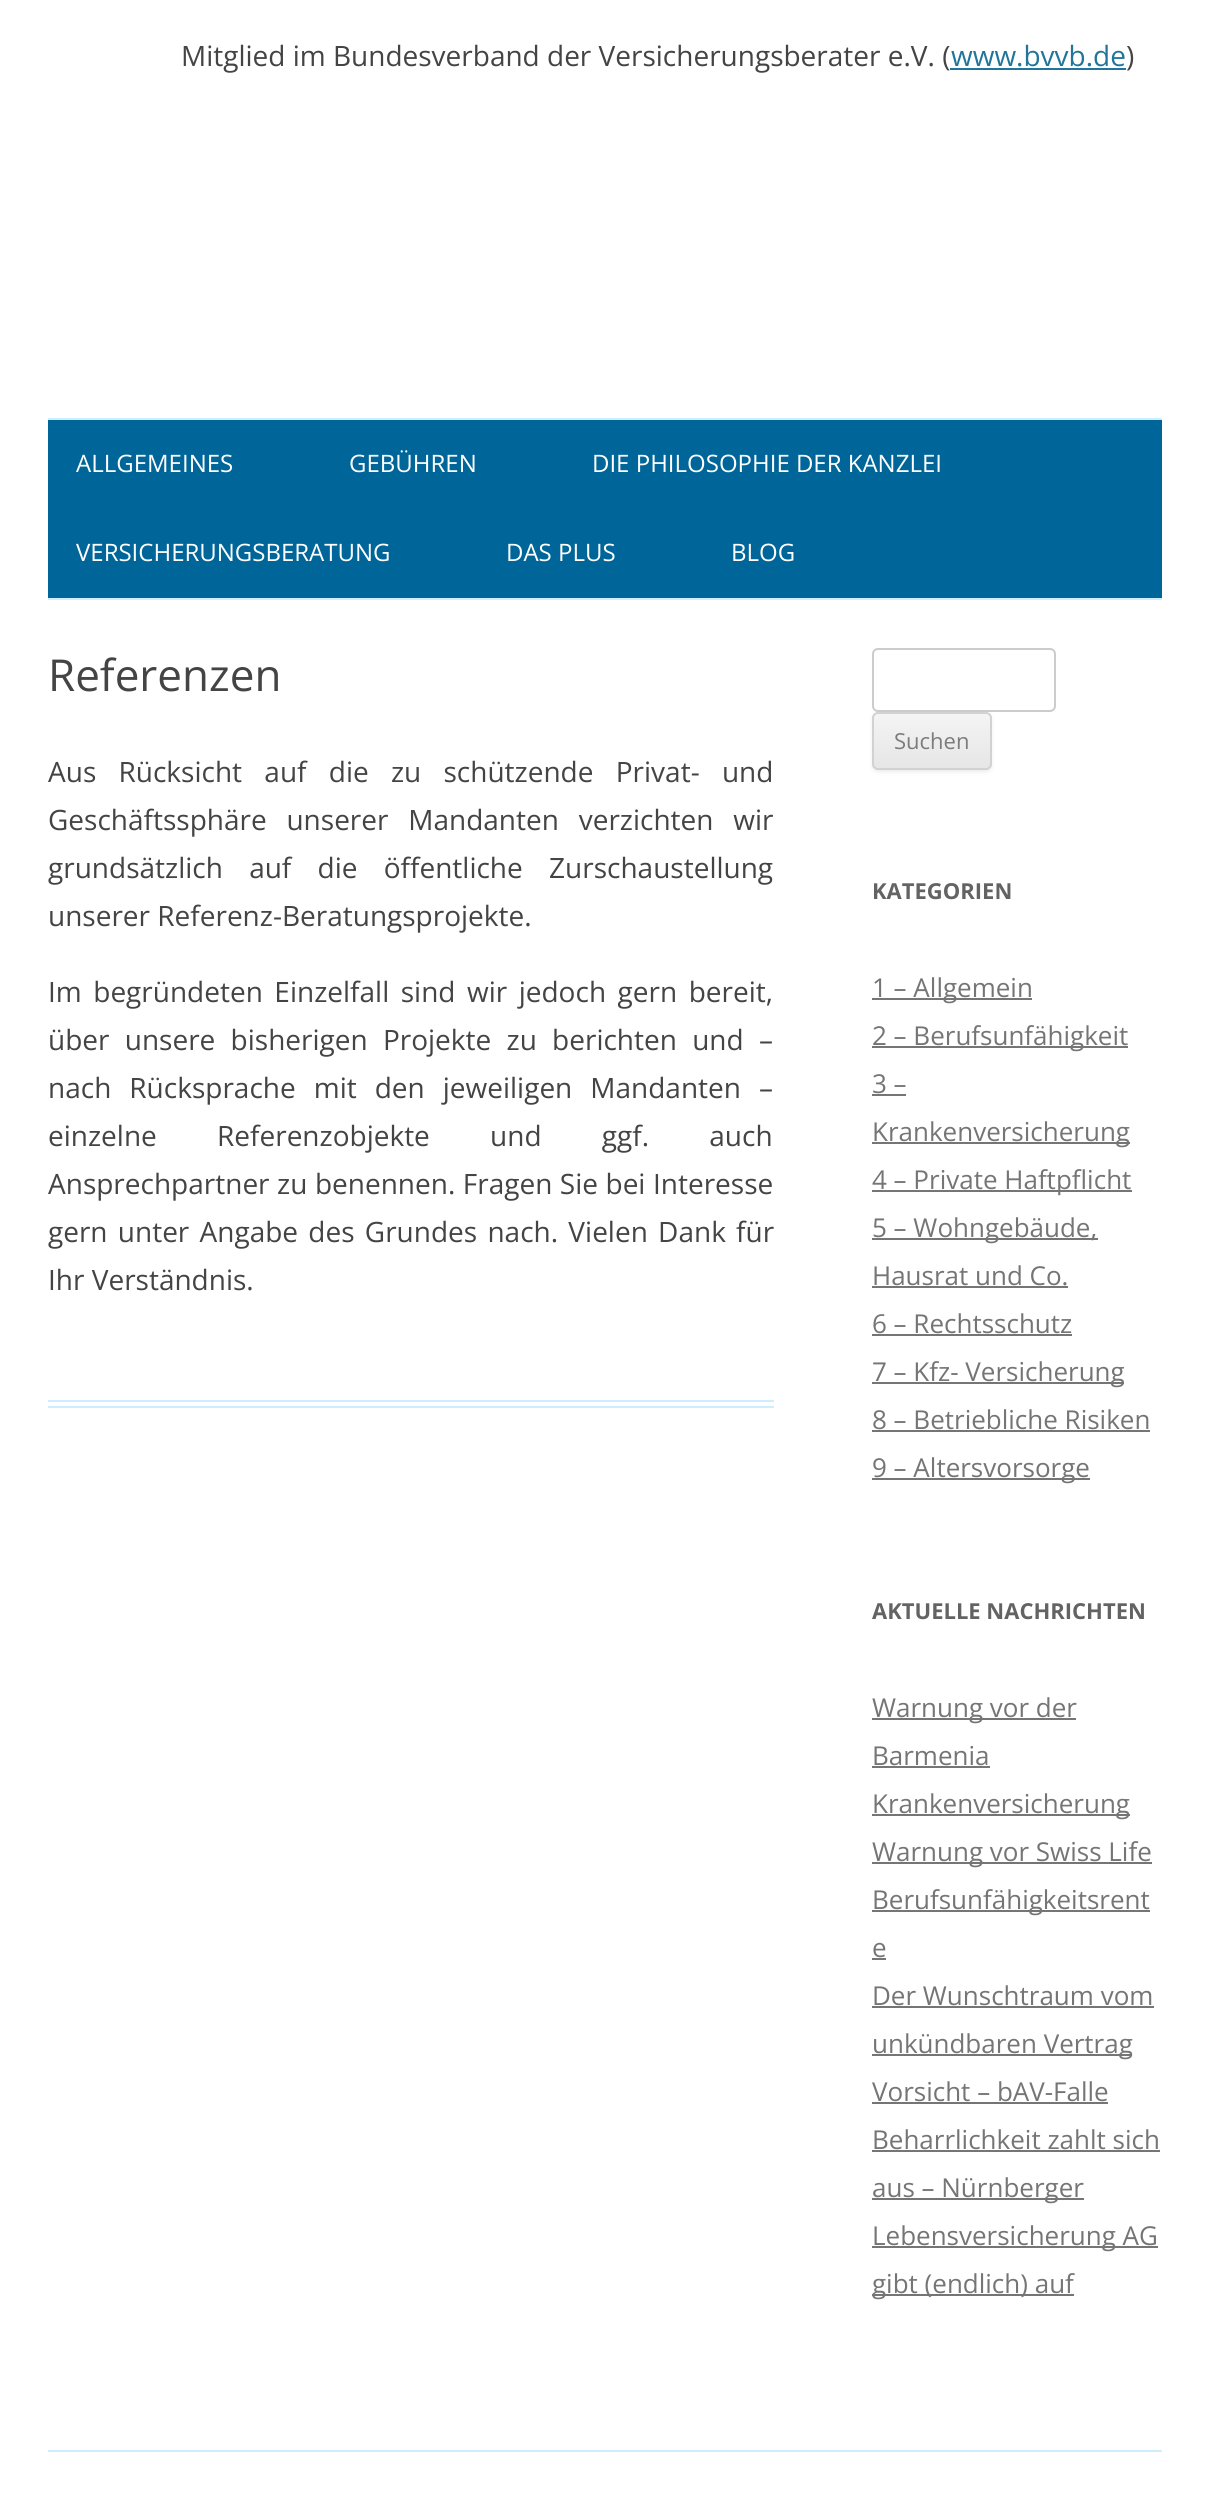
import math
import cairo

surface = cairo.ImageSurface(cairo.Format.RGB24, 1210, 2500)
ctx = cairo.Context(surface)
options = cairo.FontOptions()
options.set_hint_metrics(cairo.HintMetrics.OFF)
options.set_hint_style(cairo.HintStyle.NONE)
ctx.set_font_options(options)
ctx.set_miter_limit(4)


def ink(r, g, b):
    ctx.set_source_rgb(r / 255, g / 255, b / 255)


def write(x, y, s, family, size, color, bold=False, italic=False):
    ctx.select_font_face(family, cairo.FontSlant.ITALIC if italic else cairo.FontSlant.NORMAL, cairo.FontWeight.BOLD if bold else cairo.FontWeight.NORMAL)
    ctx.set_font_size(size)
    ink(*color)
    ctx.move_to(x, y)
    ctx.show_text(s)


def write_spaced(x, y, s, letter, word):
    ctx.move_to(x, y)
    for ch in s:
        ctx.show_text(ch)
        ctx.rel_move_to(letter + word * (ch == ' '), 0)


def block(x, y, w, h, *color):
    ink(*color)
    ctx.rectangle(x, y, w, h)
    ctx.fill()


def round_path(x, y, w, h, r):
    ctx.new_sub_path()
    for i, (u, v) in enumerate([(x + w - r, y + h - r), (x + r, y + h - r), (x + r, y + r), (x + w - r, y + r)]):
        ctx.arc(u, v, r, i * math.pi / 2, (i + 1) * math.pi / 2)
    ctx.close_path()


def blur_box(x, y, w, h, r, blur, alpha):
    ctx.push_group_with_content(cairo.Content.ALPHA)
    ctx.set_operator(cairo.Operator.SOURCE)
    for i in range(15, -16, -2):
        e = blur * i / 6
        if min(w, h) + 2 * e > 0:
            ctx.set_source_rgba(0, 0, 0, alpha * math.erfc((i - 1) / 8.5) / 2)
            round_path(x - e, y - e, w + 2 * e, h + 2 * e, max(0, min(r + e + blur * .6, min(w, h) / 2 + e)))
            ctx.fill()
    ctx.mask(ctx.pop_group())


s1 = dict(family="Open Sans", size=28, color=(68, 68, 68))
s2 = dict(family="Open Sans", size=28, color=(33, 117, 155))
s3 = dict(family="Open Sans", size=24, color=(255, 255, 255))
s4 = dict(family="Open Sans", size=44, color=(68, 68, 68))
s5 = dict(family="Open Sans", size=22, color=(124, 124, 124))
s6 = dict(family="Open Sans", size=22, color=(99, 99, 99), bold=True)
s7 = dict(family="Open Sans", size=26, color=(117, 117, 117))

ink(255, 255, 255)
ctx.paint()
write(181, 66, "Mitglied im Bundesverband der Versicherungsberater e.V. (", **s1)
write(951, 66, "www.bvvb.de", **s2)
block(950, 68, 176, 2, 33, 117, 155)
write(1126, 66, ")", **s1)
block(48, 420, 1114, 178, 0, 102, 153)
block(48, 418, 1114, 2, 204, 238, 255)
block(48, 598, 1114, 2, 204, 238, 255)
write(76, 472, "ALLGEMEINES", **s3)
write(349, 472, "GEBÜHREN", **s3)
write(592, 472, "DIE PHILOSOPHIE DER KANZLEI", **s3)
write(76, 561, "VERSICHERUNGSBERATUNG", **s3)
write(506, 561, "DAS PLUS", **s3)
write(731, 561, "BLOG", **s3)
block(48, 1400, 726, 2, 204, 238, 255)
block(48, 1406, 726, 2, 204, 238, 255)
write(48, 691, "Referenzen", **s4)
ctx.set_font_size(28)
write_spaced(48, 782, "Aus Rücksicht auf die zu schützende Privat- und", 0, 15)
write_spaced(48, 830, "Geschäftssphäre unserer Mandanten verzichten wir", 0, 12.5)
write_spaced(48, 878, "grundsätzlich auf die öffentliche Zurschaustellung", 0, 19)
write(48, 926, "unserer Referenz-Beratungsprojekte.", **s1)
write_spaced(48, 1002, "Im begründeten Einzelfall sind wir jedoch gern bereit,", 0, 4.25)
write_spaced(48, 1050, "über unsere bisherigen Projekte zu berichten und –", 0, 8)
write_spaced(48, 1098, "nach Rücksprache mit den jeweiligen Mandanten –", 0, 10.75)
write_spaced(48, 1146, "einzelne Referenzobjekte und ggf. auch", 0, 53)
write_spaced(48, 1194, "Ansprechpartner zu benennen. Fragen Sie bei Interesse", 0, 0.25)
write_spaced(48, 1242, "gern unter Angabe des Grundes nach. Vielen Dank für", 0, 3)
write(48, 1290, "Ihr Verständnis.", **s1)
round_path(873, 649, 182, 62, 5)
ink(204, 204, 204)
ctx.stroke()
ink(64, 64, 64)
blur_box(872, 714, 120, 58, 6, 2, 0.1)
ctx.save()
round_path(872, 712, 120, 58, 6)
ctx.clip()
gradient = cairo.LinearGradient(932, 714, 932, 768)
gradient.add_color_stop_rgba(0, 0.957, 0.957, 0.957, 1)
gradient.add_color_stop_rgba(1, 0.902, 0.902, 0.902, 1)
ctx.set_source(gradient)
ctx.rectangle(872, 714, 120, 54)
ctx.fill()
ctx.restore()
round_path(873, 713, 118, 56, 5)
ink(210, 210, 210)
ctx.stroke()
write(894, 749, "Suchen", **s5)
write(872, 899, "KATEGORIEN", **s6)
block(872, 998, 160, 2, 117, 117, 117)
write(872, 997, "1 – Allgemein", **s7)
block(872, 1046, 256, 2, 117, 117, 117)
write(872, 1045, "2 – Berufsunfähigkeit", **s7)
write(872, 1093, "3 –", **s7)
block(872, 1094, 34, 2, 117, 117, 117)
block(872, 1142, 258, 2, 117, 117, 117)
write(872, 1141, "Krankenversicherung", **s7)
block(872, 1190, 260, 2, 117, 117, 117)
write(872, 1189, "4 – Private Haftpflicht", **s7)
block(872, 1238, 226, 2, 117, 117, 117)
write(872, 1237, "5 – Wohngebäude,", **s7)
write(872, 1285, "Hausrat und Co.", **s7)
block(872, 1286, 196, 2, 117, 117, 117)
write(872, 1333, "6 – Rechtsschutz", **s7)
block(872, 1334, 200, 2, 117, 117, 117)
block(872, 1382, 252, 2, 117, 117, 117)
write(872, 1381, "7 – Kfz- Versicherung", **s7)
write(872, 1429, "8 – Betriebliche Risiken", **s7)
block(872, 1430, 278, 2, 117, 117, 117)
block(872, 1478, 218, 2, 117, 117, 117)
write(872, 1477, "9 – Altersvorsorge", **s7)
write(872, 1619, "AKTUELLE NACHRICHTEN", **s6)
block(872, 1718, 204, 2, 117, 117, 117)
write(872, 1717, "Warnung vor der", **s7)
write(872, 1765, "Barmenia", **s7)
block(872, 1766, 118, 2, 117, 117, 117)
block(872, 1814, 258, 2, 117, 117, 117)
write(872, 1813, "Krankenversicherung", **s7)
block(872, 1862, 280, 2, 117, 117, 117)
write(872, 1861, "Warnung vor Swiss Life", **s7)
block(872, 1910, 278, 2, 117, 117, 117)
write(872, 1909, "Berufsunfähigkeitsrent", **s7)
write(872, 1957, "e", **s7)
block(872, 1958, 14, 2, 117, 117, 117)
write(872, 2005, "Der Wunschtraum vom", **s7)
block(872, 2006, 282, 2, 117, 117, 117)
block(872, 2054, 260, 2, 117, 117, 117)
write(872, 2053, "unkündbaren Vertrag", **s7)
write(872, 2101, "Vorsicht – bAV-Falle", **s7)
block(872, 2102, 236, 2, 117, 117, 117)
write(872, 2149, "Beharrlichkeit zahlt sich", **s7)
block(872, 2150, 288, 2, 117, 117, 117)
block(872, 2198, 212, 2, 117, 117, 117)
write(872, 2197, "aus – Nürnberger", **s7)
block(872, 2246, 286, 2, 117, 117, 117)
write(872, 2245, "Lebensversicherung AG", **s7)
block(872, 2294, 202, 2, 117, 117, 117)
write(872, 2293, "gibt (endlich) auf", **s7)
block(48, 2450, 1114, 2, 204, 238, 255)
surface.write_to_png("screenshot.png")
